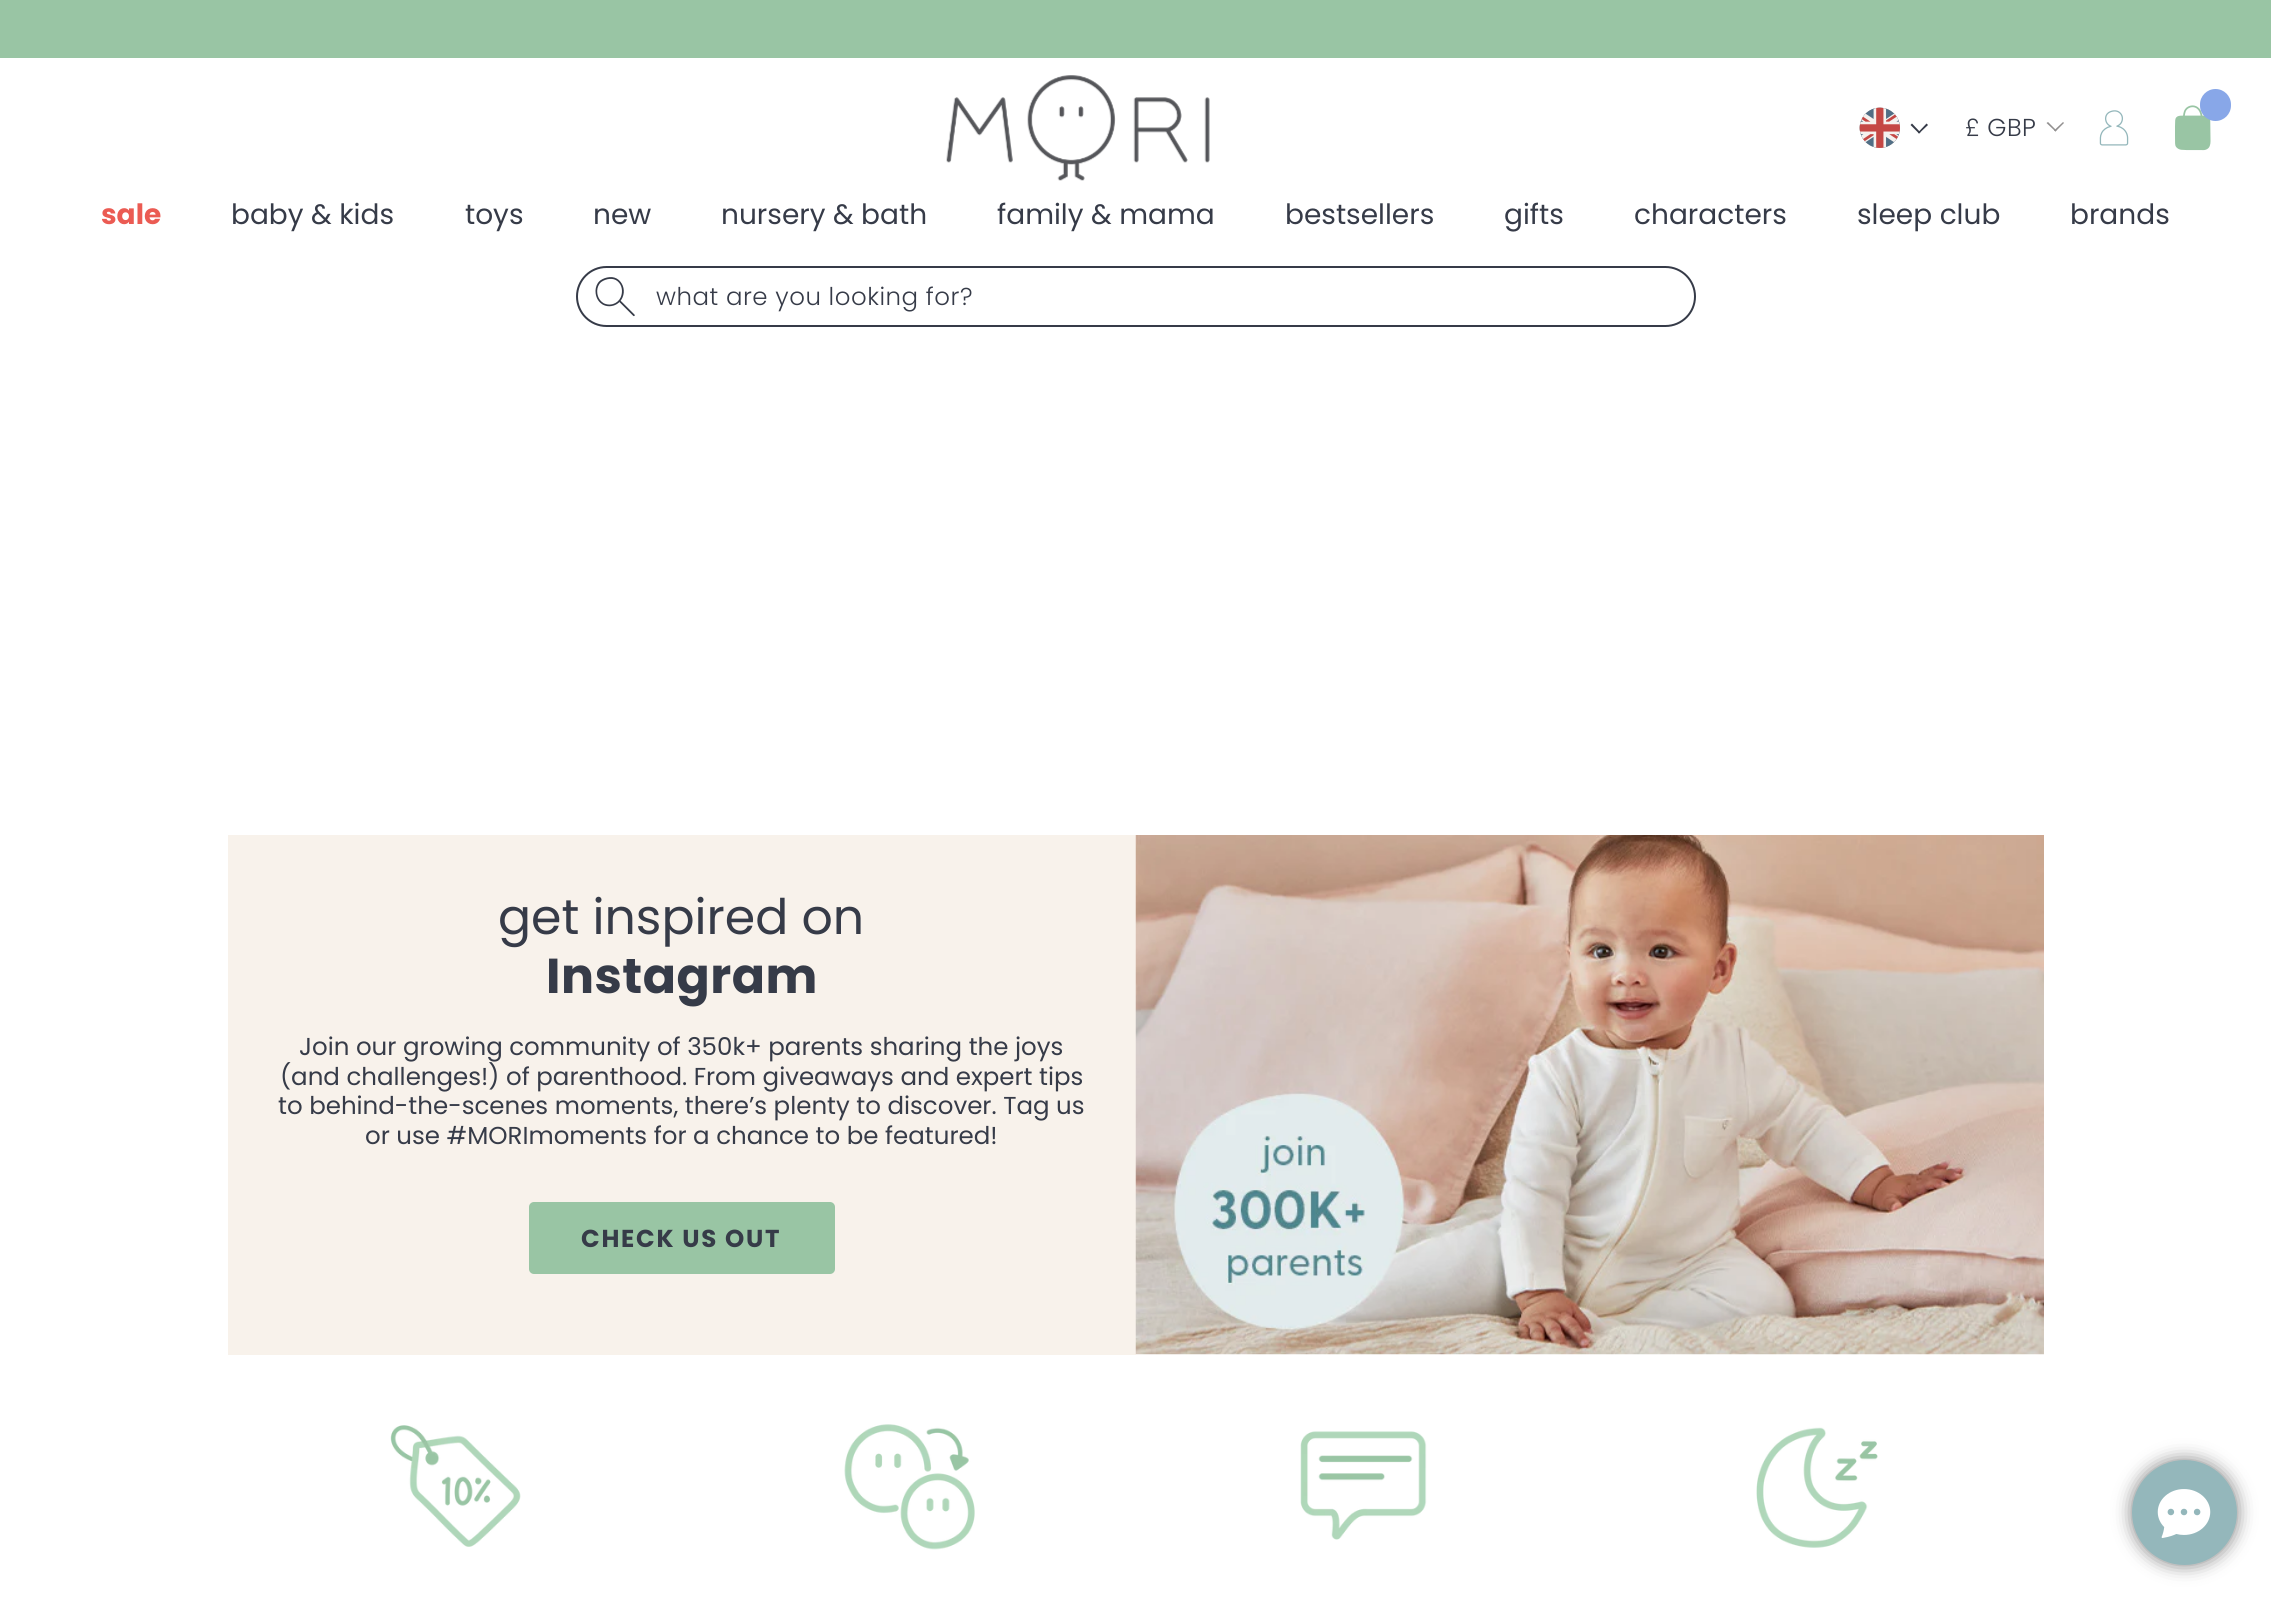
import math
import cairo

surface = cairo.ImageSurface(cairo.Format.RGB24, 2271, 1598)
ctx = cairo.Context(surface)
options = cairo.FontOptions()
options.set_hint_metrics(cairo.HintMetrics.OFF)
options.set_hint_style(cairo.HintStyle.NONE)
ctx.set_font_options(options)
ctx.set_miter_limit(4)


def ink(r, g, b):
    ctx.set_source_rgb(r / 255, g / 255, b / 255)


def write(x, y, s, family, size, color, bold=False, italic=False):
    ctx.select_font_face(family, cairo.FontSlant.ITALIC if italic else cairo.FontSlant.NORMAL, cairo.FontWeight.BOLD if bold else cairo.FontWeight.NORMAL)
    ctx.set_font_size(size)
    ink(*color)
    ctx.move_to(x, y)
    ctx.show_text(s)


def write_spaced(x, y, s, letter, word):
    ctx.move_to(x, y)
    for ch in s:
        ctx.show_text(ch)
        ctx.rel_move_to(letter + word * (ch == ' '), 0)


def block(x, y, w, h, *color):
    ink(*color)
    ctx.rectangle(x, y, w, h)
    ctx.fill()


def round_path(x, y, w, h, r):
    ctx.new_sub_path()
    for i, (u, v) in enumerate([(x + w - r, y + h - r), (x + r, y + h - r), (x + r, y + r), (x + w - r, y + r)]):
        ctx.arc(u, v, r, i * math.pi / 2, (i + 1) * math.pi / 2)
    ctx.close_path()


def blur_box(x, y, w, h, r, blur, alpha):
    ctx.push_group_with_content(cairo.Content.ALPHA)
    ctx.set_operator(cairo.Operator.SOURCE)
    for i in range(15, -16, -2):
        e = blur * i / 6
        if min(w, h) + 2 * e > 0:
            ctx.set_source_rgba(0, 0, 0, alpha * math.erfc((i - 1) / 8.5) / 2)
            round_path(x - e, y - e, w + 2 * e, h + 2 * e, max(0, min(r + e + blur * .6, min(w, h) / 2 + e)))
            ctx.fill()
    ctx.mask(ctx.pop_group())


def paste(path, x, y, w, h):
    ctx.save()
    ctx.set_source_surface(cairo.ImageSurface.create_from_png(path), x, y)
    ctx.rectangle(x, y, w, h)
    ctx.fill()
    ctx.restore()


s1 = dict(family="Poppins", size=28, color=(235, 91, 83), bold=True)
s2 = dict(family="Poppins", size=28, color=(54, 59, 72))
s3 = dict(family="Poppins", size=49, color=(54, 59, 72))
s4 = dict(family="Poppins", size=24.5, color=(54, 59, 72))

ink(255, 255, 255)
ctx.paint()
block(0, 0, 2271, 58, 153, 197, 164)
paste("pic1.png", 946, 75, 264, 106)
paste("pic2.png", 1859, 107, 41, 41)
ink(54, 59, 72)
ctx.new_path()
ctx.move_to(1926.5, 123.5)
ctx.line_to(1928, 125)
ctx.line_to(1919, 133.5)
ctx.line_to(1918, 132.5)
ctx.close_path()
ctx.fill()
ctx.new_path()
ctx.move_to(1912, 123.5)
ctx.line_to(1920.5, 132.5)
ctx.line_to(1919, 133.5)
ctx.line_to(1910.5, 125)
ctx.close_path()
ctx.fill()
ctx.select_font_face("Poppins Light")
ctx.set_font_size(24.5)
write_spaced(1965, 136, "£ GBP", 0.5, 0)
ink(146, 144, 144)
ctx.new_path()
ctx.move_to(2063, 122)
ctx.line_to(2064, 123)
ctx.line_to(2055.5, 131.5)
ctx.line_to(2054, 130.5)
ctx.close_path()
ctx.fill()
ctx.new_path()
ctx.move_to(2048, 122)
ctx.line_to(2056.5, 130.5)
ctx.line_to(2055.5, 131.5)
ctx.line_to(2046.5, 123)
ctx.close_path()
ctx.fill()
paste("pic3.png", 2099, 110, 30, 36)
paste("pic4.png", 2175, 105, 36, 46)
ink(136, 167, 232)
round_path(2200, 89, 31, 32, 15.5)
ctx.fill()
write(101, 224, "sale", **s1)
write(231, 224, "baby & kids", **s2)
write(465, 224, "toys", **s2)
write(593, 224, "new", **s2)
write(721, 224, "nursery & bath", **s2)
write(997, 224, "family & mama", **s2)
write(1285, 224, "bestsellers", **s2)
write(1504, 224, "gifts", **s2)
write(1634, 224, "characters", **s2)
write(1857, 224, "sleep club", **s2)
write(2070, 224, "brands", **s2)
round_path(577, 267, 1118, 59, 29.5)
ctx.stroke()
paste("pic5.png", 595, 277, 40, 40)
ctx.select_font_face("Poppins Light")
ctx.set_font_size(24.5)
write_spaced(656, 305, "what are you looking for?", 0.5, 0)
block(228, 835, 908, 520, 248, 242, 235)
write(498, 934, "get inspired on", **s3)
ctx.select_font_face("Poppins", cairo.FontSlant.NORMAL, cairo.FontWeight.BOLD)
write_spaced(546, 993, "Instagram", 0.5, 0)
write(299, 1055, "Join our growing community of 350k+ parents sharing the joys", **s4)
write(280, 1085, "(and challenges!) of parenthood. From giveaways and expert tips", **s4)
write(278, 1114, "to behind-the-scenes moments, there’s plenty to discover. Tag us", **s4)
write(365, 1144, "or use #MORImoments for a chance to be featured!", **s4)
ink(153, 197, 164)
round_path(529, 1202, 306, 72, 5)
ctx.fill()
ctx.select_font_face("Poppins", cairo.FontSlant.NORMAL, cairo.FontWeight.BOLD)
ink(54, 59, 72)
write_spaced(581, 1247, "CHECK US OUT", 1.75, 0)
paste("pic6.png", 1135, 835, 909, 520)
paste("pic7.png", 390, 1425, 131, 122)
paste("pic8.png", 844, 1424, 131, 126)
paste("pic9.png", 1300, 1431, 127, 109)
paste("pic10.png", 1756, 1427, 122, 121)
ink(0, 0, 0)
blur_box(2132, 1460, 105, 105, 52.5, 9, 0.5)
ink(148, 183, 187)
ctx.arc(2184.5, 1512.5, 52.5, 0, 2 * math.pi)
ctx.fill()
paste("pic11.png", 2157, 1489, 54, 49)
surface.write_to_png("screenshot.png")
